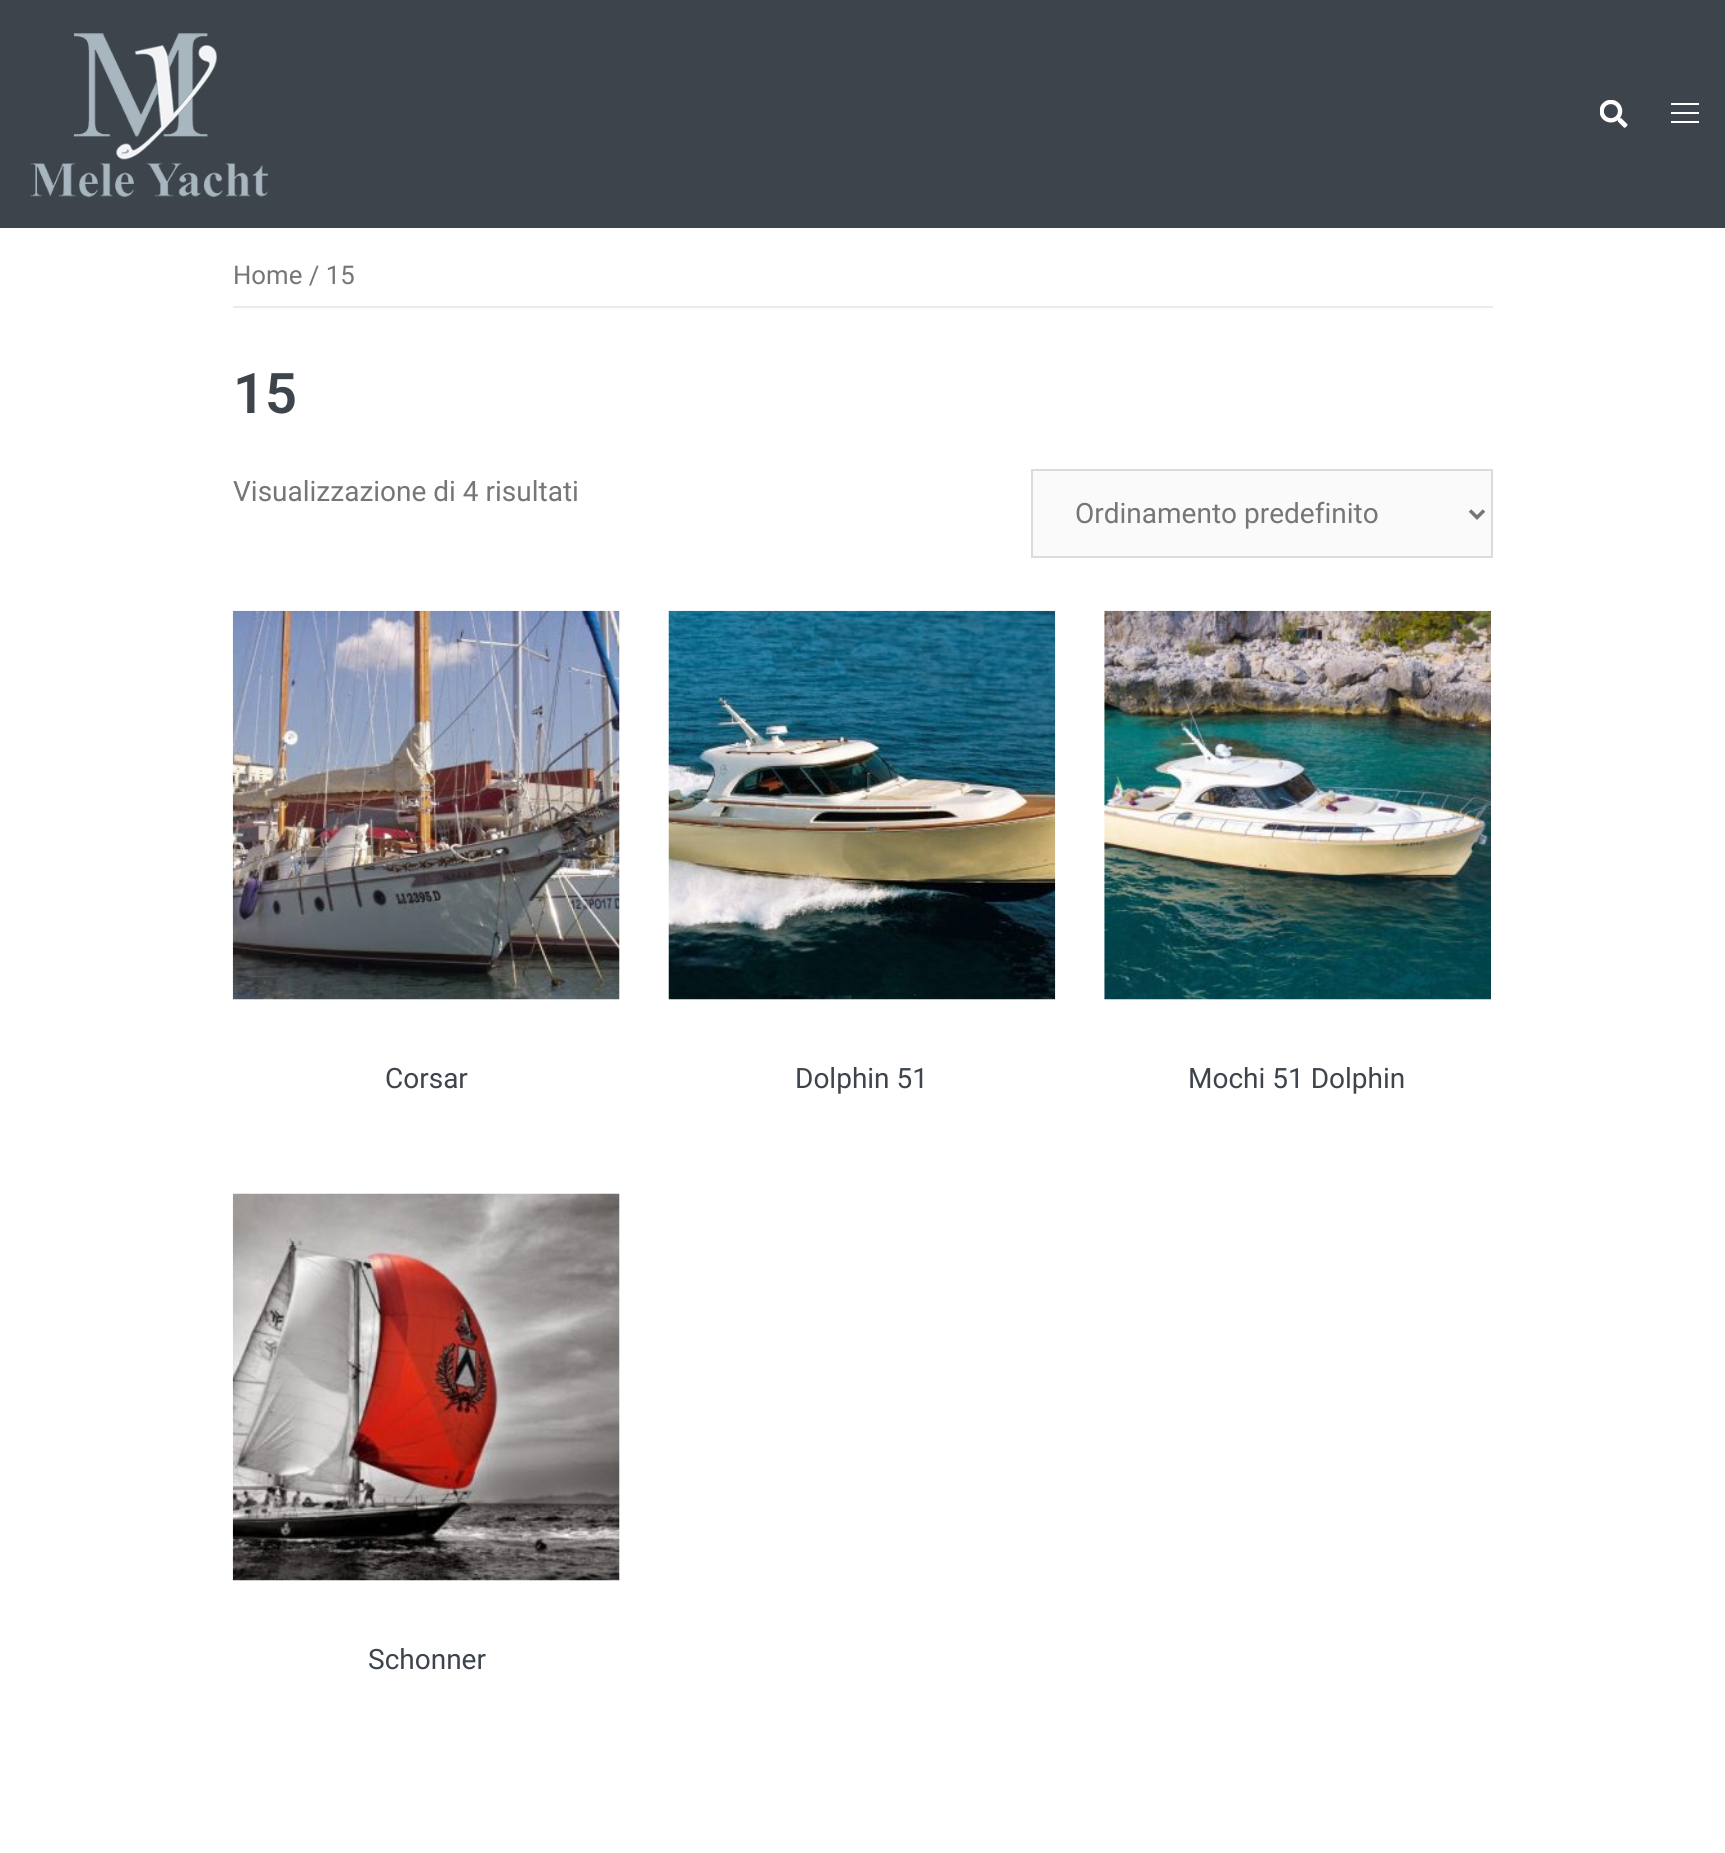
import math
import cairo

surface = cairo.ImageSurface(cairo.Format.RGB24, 1725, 1853)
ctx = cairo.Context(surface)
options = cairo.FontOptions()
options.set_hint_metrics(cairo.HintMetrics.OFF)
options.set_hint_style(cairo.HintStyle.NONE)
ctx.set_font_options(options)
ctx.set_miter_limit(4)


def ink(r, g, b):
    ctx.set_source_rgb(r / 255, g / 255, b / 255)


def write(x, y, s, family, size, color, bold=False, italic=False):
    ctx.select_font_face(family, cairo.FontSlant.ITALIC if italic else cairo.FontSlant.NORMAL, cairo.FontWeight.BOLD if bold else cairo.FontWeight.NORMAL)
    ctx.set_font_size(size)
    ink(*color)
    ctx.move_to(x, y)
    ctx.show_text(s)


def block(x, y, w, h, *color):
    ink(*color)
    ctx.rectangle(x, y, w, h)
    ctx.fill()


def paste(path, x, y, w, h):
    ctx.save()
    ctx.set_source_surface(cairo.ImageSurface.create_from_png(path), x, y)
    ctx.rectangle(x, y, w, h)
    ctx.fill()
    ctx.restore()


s1 = dict(family="Roboto", size=25.75, color=(118, 118, 118))
s2 = dict(family="Roboto SemiBold", size=56, color=(61, 68, 76))
s3 = dict(family="Roboto", size=28, color=(118, 118, 118))
s4 = dict(family="Roboto", size=28, color=(61, 68, 76))

ink(255, 255, 255)
ctx.paint()
block(0, 0, 1725, 228, 61, 68, 76)
paste("pic1.png", 30, 33, 238, 165)
paste("pic2.png", 1600, 100, 28, 28)
block(1671, 103, 28, 2, 255, 255, 255)
block(1671, 112, 28, 2, 255, 255, 255)
block(1671, 121, 28, 2, 255, 255, 255)
block(233, 306, 1260, 2, 235, 235, 235)
write(233, 284, "Home / 15", **s1)
write(233, 413, "15", **s2)
write(233, 501, "Visualizzazione di 4 risultati", **s3)
ink(250, 250, 250)
ctx.rectangle(1032, 470, 460, 87)
ctx.fill_preserve()
ink(219, 219, 219)
ctx.stroke()
ctx.new_path()
ctx.move_to(1470, 510.5)
ctx.line_to(1477, 517.5)
ctx.line_to(1484, 510.5)
ink(118, 118, 118)
ctx.set_line_width(3.5)
ctx.stroke()
write(1075, 523, "Ordinamento predefinito", **s3)
paste("pic3.png", 232, 610, 388, 390)
write(385, 1088, "Corsar", **s4)
paste("pic4.png", 668, 610, 388, 390)
write(795, 1088, "Dolphin 51", **s4)
paste("pic5.png", 1104, 610, 387, 390)
write(1188, 1088, "Mochi 51 Dolphin", **s4)
paste("pic6.png", 232, 1193, 388, 388)
write(368, 1669, "Schonner", **s4)
surface.write_to_png("screenshot.png")
